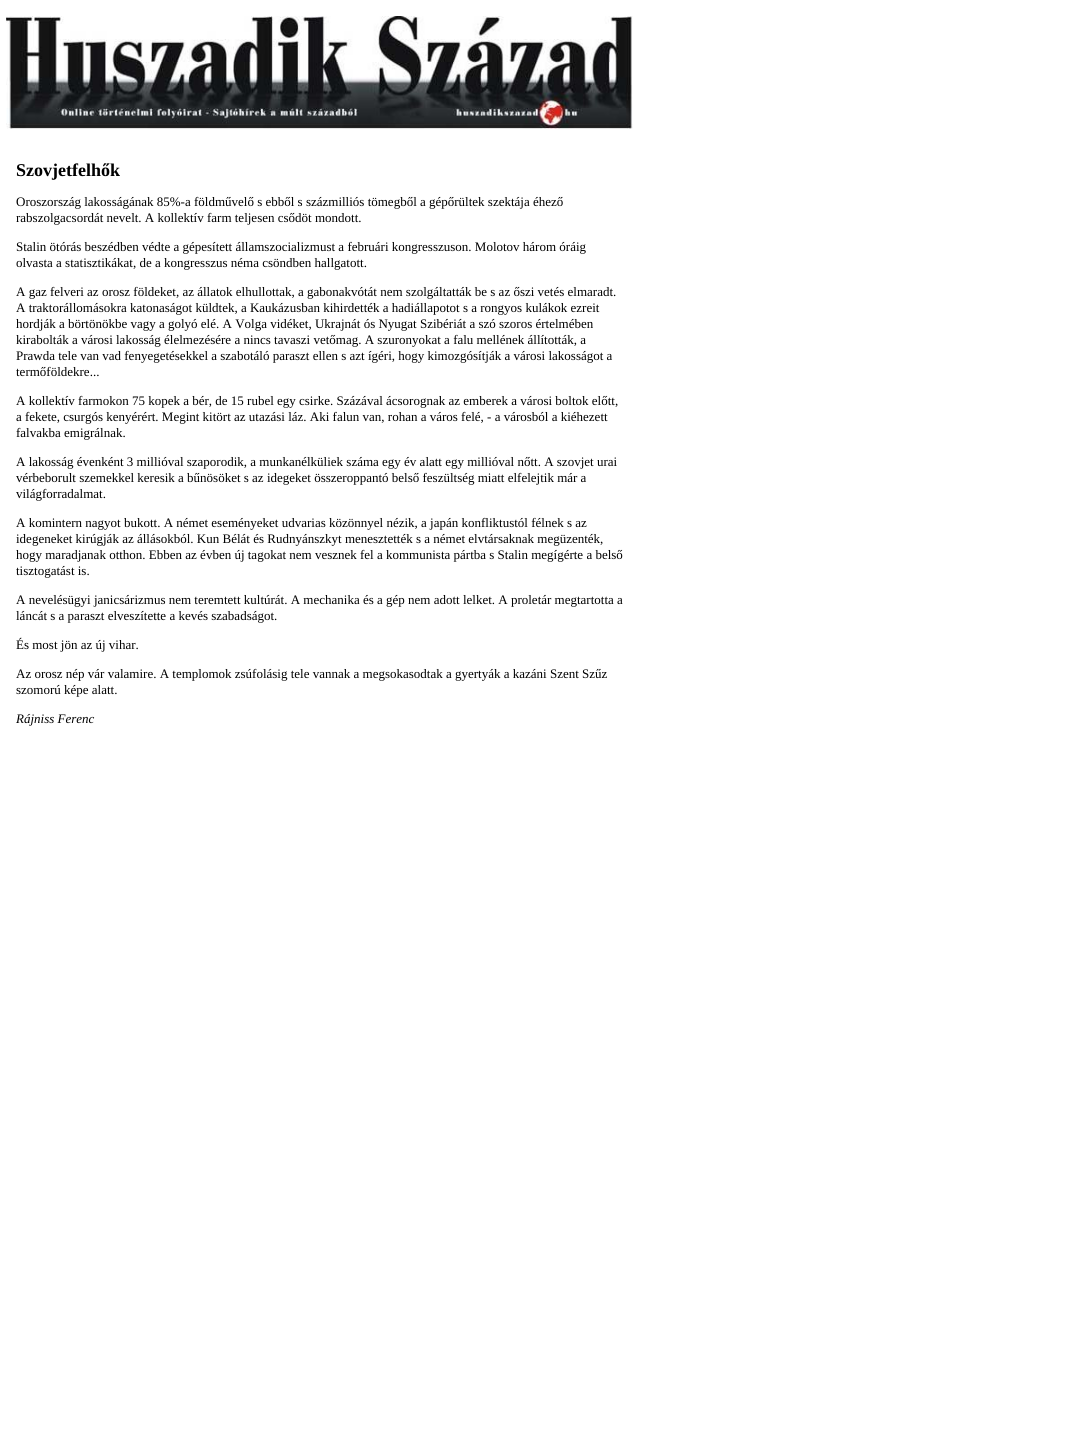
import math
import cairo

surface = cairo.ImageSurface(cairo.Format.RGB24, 1076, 1433)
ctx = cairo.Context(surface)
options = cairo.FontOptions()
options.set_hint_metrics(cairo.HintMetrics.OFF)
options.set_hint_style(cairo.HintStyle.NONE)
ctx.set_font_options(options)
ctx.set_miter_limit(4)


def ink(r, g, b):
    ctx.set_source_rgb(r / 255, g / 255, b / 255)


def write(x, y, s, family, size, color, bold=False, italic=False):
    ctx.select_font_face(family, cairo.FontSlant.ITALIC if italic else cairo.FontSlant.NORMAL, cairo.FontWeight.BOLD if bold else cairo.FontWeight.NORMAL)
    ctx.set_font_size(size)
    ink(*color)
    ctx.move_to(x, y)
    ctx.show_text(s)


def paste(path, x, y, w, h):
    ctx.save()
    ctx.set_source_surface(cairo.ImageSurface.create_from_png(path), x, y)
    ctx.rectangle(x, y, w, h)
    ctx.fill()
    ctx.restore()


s1 = dict(family="Liberation Serif", size=18, color=(0, 0, 0), bold=True)
s2 = dict(family="Liberation Serif", size=13, color=(0, 0, 0))
s3 = dict(family="Liberation Serif", size=13, color=(0, 0, 0), italic=True)

ink(255, 255, 255)
ctx.paint()
paste("pic1.png", 6, 16, 627, 113)
write(16, 176, "Szovjetfelhők", **s1)
write(16, 206, "Oroszország lakosságának 85%-a földművelő s ebből s százmilliós tömegből a gépőrültek szektája éhező", **s2)
write(16, 222, "rabszolgacsordát nevelt. A kollektív farm teljesen csődöt mondott.", **s2)
write(16, 251, "Stalin ötórás beszédben védte a gépesített államszocializmust a februári kongresszuson. Molotov három óráig", **s2)
write(16, 267, "olvasta a statisztikákat, de a kongresszus néma csöndben hallgatott.", **s2)
write(16, 296, "A gaz felveri az orosz földeket, az állatok elhullottak, a gabonakvótát nem szolgáltatták be s az őszi vetés elmaradt.", **s2)
write(16, 312, "A traktorállomásokra katonaságot küldtek, a Kaukázusban kihirdették a hadiállapotot s a rongyos kulákok ezreit", **s2)
write(16, 328, "hordják a börtönökbe vagy a golyó elé. A Volga vidéket, Ukrajnát ós Nyugat Szibériát a szó szoros értelmében", **s2)
write(16, 344, "kirabolták a városi lakosság élelmezésére a nincs tavaszi vetőmag. A szuronyokat a falu mellének állították, a", **s2)
write(16, 360, "Prawda tele van vad fenyegetésekkel a szabotáló paraszt ellen s azt ígéri, hogy kimozgósítják a városi lakosságot a", **s2)
write(16, 376, "termőföldekre...", **s2)
write(16, 405, "A kollektív farmokon 75 kopek a bér, de 15 rubel egy csirke. Százával ácsorognak az emberek a városi boltok előtt,", **s2)
write(16, 421, "a fekete, csurgós kenyérért. Megint kitört az utazási láz. Aki falun van, rohan a város felé, - a városból a kiéhezett", **s2)
write(16, 437, "falvakba emigrálnak.", **s2)
write(16, 466, "A lakosság évenként 3 millióval szaporodik, a munkanélküliek száma egy év alatt egy millióval nőtt. A szovjet urai", **s2)
write(16, 482, "vérbeborult szemekkel keresik a bűnösöket s az idegeket összeroppantó belső feszültség miatt elfelejtik már a", **s2)
write(16, 498, "világforradalmat.", **s2)
write(16, 527, "A komintern nagyot bukott. A német eseményeket udvarias közönnyel nézik, a japán konfliktustól félnek s az", **s2)
write(16, 543, "idegeneket kirúgják az állásokból. Kun Bélát és Rudnyánszkyt menesztették s a német elvtársaknak megüzenték,", **s2)
write(16, 559, "hogy maradjanak otthon. Ebben az évben új tagokat nem vesznek fel a kommunista pártba s Stalin megígérte a belső", **s2)
write(16, 575, "tisztogatást is.", **s2)
write(16, 604, "A nevelésügyi janicsárizmus nem teremtett kultúrát. A mechanika és a gép nem adott lelket. A proletár megtartotta a", **s2)
write(16, 620, "láncát s a paraszt elveszítette a kevés szabadságot.", **s2)
write(16, 649, "És most jön az új vihar.", **s2)
write(16, 678, "Az orosz nép vár valamire. A templomok zsúfolásig tele vannak a megsokasodtak a gyertyák a kazáni Szent Szűz", **s2)
write(16, 694, "szomorú képe alatt.", **s2)
write(16, 723, "Rájniss Ferenc", **s3)
surface.write_to_png("screenshot.png")
